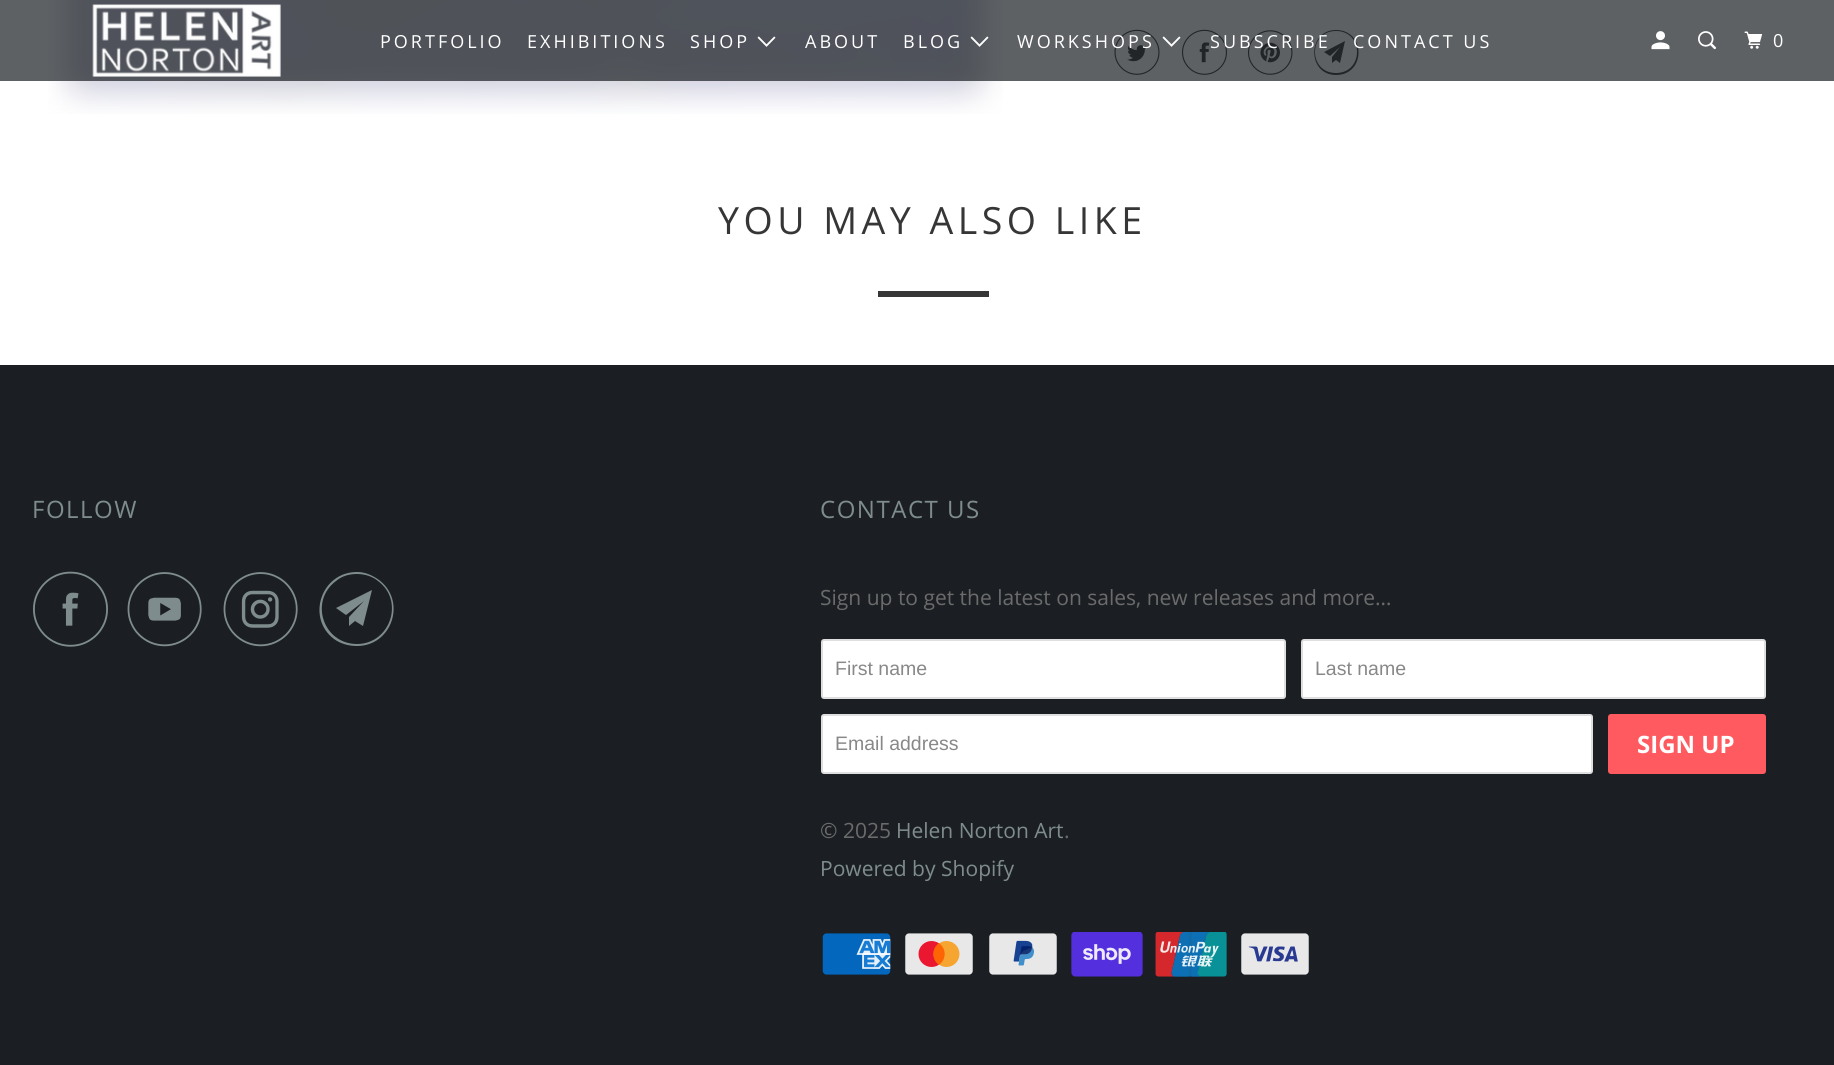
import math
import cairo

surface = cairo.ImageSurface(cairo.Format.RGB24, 1834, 1065)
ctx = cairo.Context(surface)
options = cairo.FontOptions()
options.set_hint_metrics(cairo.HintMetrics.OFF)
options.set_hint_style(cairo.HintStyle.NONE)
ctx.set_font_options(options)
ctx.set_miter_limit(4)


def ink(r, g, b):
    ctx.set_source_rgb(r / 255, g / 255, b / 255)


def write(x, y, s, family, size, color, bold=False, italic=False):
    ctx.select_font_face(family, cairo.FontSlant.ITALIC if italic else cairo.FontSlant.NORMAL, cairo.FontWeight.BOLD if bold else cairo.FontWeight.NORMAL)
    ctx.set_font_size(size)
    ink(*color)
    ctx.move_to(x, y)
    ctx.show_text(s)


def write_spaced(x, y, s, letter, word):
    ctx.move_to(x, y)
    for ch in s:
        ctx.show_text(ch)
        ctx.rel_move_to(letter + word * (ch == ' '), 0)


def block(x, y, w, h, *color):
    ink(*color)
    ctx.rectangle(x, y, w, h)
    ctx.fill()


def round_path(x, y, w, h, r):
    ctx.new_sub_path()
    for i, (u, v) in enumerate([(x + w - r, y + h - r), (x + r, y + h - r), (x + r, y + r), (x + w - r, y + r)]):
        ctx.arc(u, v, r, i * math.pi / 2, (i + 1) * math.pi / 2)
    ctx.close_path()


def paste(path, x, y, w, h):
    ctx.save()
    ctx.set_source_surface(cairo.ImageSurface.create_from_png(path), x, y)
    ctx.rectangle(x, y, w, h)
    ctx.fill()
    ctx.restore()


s1 = dict(family="Open Sans", size=21, color=(107, 107, 107))
s2 = dict(family="Liberation Sans", size=19.5, color=(136, 136, 136))
s3 = dict(family="Open Sans", size=24, color=(255, 255, 255), bold=True)
s4 = dict(family="Open Sans", size=21, color=(127, 140, 141))

ink(27, 31, 35)
ctx.paint()
block(0, 0, 1834, 365, 255, 255, 255)
paste("pic8.png", 48, 0, 955, 114)
paste("pic9.png", 1114, 29, 46, 46)
paste("pic10.png", 1182, 29, 45, 46)
paste("pic11.png", 1248, 30, 45, 45)
ink(54, 54, 54)
ctx.new_path()
ctx.move_to(1340, 63)
ctx.line_to(1336, 60)
ctx.line_to(1332, 63)
ctx.line_to(1332, 57)
ctx.line_to(1340, 47)
ctx.line_to(1330, 56)
ctx.line_to(1324, 52)
ctx.line_to(1345, 41)
ctx.close_path()
ctx.move_to(1336, 31)
ctx.curve_to(1308, 31, 1308, 73, 1336, 73)
ctx.curve_to(1364, 73, 1364, 31, 1336, 31)
ctx.close_path()
ctx.move_to(1336, 75)
ctx.curve_to(1307, 75, 1307, 30, 1336, 30)
ctx.curve_to(1366, 30, 1366, 75, 1336, 75)
ctx.close_path()
ctx.fill()
ctx.set_source_rgba(0.106, 0.122, 0.137, 0.7)
ctx.rectangle(0, 0, 1834, 81)
ctx.fill()
paste("pic1.png", 92, 4, 189, 73)
ctx.select_font_face("Open Sans")
ctx.set_font_size(18)
ink(255, 255, 255)
write_spaced(380, 48, "PORTFOLIO", 3, 0)
write_spaced(527, 48, "EXHIBITIONS", 3, 0)
write_spaced(690, 48, "SHOP", 3, 0)
paste("pic2.png", 757, 36, 19, 11)
write_spaced(805, 48, "ABOUT", 3, 0)
write_spaced(903, 48, "BLOG", 3, 0)
paste("pic3.png", 970, 36, 19, 11)
write_spaced(1017, 48, "WORKSHOPS", 3, 0)
paste("pic4.png", 1162, 36, 19, 11)
write_spaced(1210, 48, "SUBSCRIBE", 3, 0)
write_spaced(1353, 48, "CONTACT US", 3, 0)
paste("pic5.png", 1651, 31, 19, 19)
paste("pic6.png", 1698, 31, 18, 19)
paste("pic7.png", 1744, 31, 19, 18)
write_spaced(1773, 47, "0", 3, 0)
ctx.set_font_size(37.5)
ink(54, 54, 54)
write_spaced(718, 234, "YOU MAY ALSO LIKE", 4.5, 0)
block(878, 291, 111, 6, 54, 54, 54)
ctx.set_font_size(24)
ink(127, 140, 141)
write_spaced(32, 518, "FOLLOW", 1.5, 0)
paste("pic12.png", 33, 571, 75, 76)
paste("pic13.png", 127, 572, 75, 75)
paste("pic14.png", 223, 572, 75, 75)
ctx.new_path()
ctx.move_to(363, 626)
ctx.line_to(355, 621)
ctx.line_to(349, 626)
ctx.line_to(349, 617)
ctx.line_to(364, 601)
ctx.line_to(346, 615)
ctx.line_to(336, 608)
ctx.line_to(372, 590)
ctx.close_path()
ctx.move_to(357, 574)
ctx.curve_to(349, 574, 342, 576, 336, 581)
ctx.curve_to(309, 601, 323, 644, 357, 644)
ctx.curve_to(390, 644, 405, 601, 378, 581)
ctx.curve_to(372, 576, 364, 574, 357, 574)
ctx.close_path()
ctx.move_to(357, 646)
ctx.curve_to(349, 646, 341, 644, 334, 639)
ctx.curve_to(306, 618, 321, 572, 357, 572)
ctx.curve_to(365, 572, 372, 575, 379, 580)
ctx.curve_to(407, 601, 392, 646, 357, 646)
ctx.close_path()
ctx.fill()
write_spaced(820, 518, "CONTACT US", 1.5, 0)
write(820, 605, "Sign up to get the latest on sales, new releases and more…", **s1)
ink(255, 255, 255)
round_path(822, 640, 463, 58, 2)
ctx.fill_preserve()
ink(223, 223, 223)
ctx.stroke()
write(835, 675, "First name", **s2)
ink(255, 255, 255)
round_path(1302, 640, 463, 58, 2)
ctx.fill_preserve()
ink(223, 223, 223)
ctx.stroke()
write(1315, 675, "Last name", **s2)
ink(255, 255, 255)
round_path(822, 715, 770, 58, 2)
ctx.fill_preserve()
ink(223, 223, 223)
ctx.stroke()
write(835, 750, "Email address", **s2)
ink(255, 90, 95)
round_path(1608, 714, 158, 60, 3)
ctx.fill()
write(1637, 753, "SIGN UP", **s3)
write(820, 838, "© 2025", **s1)
write(896, 838, "Helen Norton Art", **s4)
write(1064, 838, ".", **s1)
write(820, 876, "Powered by Shopify", **s4)
paste("pic15.png", 822, 933, 69, 42)
paste("pic16.png", 905, 933, 68, 42)
paste("pic17.png", 989, 933, 68, 42)
paste("pic18.png", 1071, 932, 72, 45)
paste("pic19.png", 1155, 932, 72, 45)
paste("pic20.png", 1241, 933, 68, 42)
surface.write_to_png("screenshot.png")
